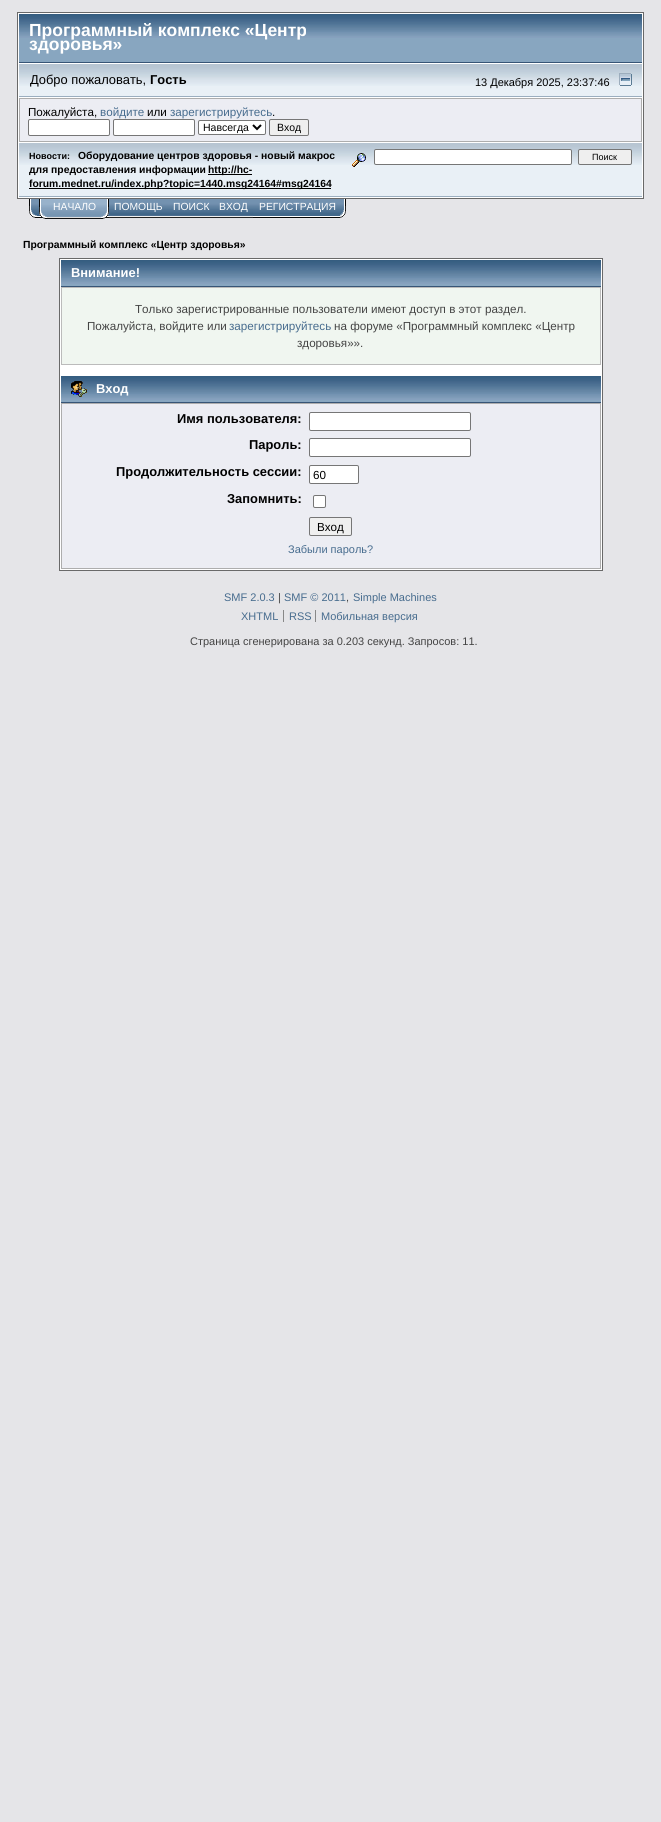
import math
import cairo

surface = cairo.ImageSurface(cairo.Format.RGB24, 661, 1822)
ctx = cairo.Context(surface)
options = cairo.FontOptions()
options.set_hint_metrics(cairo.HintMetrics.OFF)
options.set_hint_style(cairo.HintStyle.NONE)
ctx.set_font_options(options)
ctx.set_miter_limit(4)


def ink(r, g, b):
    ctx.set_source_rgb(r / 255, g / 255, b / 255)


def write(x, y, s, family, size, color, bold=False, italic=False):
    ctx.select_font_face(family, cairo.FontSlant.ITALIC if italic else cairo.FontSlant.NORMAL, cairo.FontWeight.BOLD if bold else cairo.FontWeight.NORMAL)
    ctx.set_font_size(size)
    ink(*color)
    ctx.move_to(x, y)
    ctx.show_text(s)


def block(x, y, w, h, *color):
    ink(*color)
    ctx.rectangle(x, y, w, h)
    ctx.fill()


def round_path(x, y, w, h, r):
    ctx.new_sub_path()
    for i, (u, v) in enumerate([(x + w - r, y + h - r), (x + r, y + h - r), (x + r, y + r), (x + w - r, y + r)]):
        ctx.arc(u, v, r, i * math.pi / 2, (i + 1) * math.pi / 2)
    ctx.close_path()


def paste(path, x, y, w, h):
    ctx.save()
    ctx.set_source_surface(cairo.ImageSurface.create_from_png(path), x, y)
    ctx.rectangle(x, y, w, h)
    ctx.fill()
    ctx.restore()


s1 = dict(family="Liberation Sans", size=17.5, color=(255, 255, 255), bold=True)
s2 = dict(family="Liberation Sans", size=12.9, color=(0, 0, 0))
s3 = dict(family="Liberation Sans", size=12.9, color=(0, 0, 0), bold=True)
s4 = dict(family="Liberation Sans", size=11, color=(0, 0, 0))
s5 = dict(family="Liberation Sans", size=11.65, color=(0, 0, 0))
s6 = dict(family="Liberation Sans", size=11.65, color=(71, 108, 142))
s7 = dict(family="Liberation Sans", size=10.5, color=(0, 0, 0))
s8 = dict(family="Liberation Sans", size=9, color=(0, 0, 0), bold=True)
s9 = dict(family="Liberation Sans", size=10.35, color=(0, 0, 0), bold=True)
s10 = dict(family="Liberation Sans", size=9, color=(0, 0, 0))
s11 = dict(family="Liberation Sans", size=10.35, color=(255, 255, 255))
s12 = dict(family="Liberation Sans", size=12.9, color=(255, 255, 255), bold=True)
s13 = dict(family="Liberation Sans", size=11.65, color=(68, 68, 68))
s14 = dict(family="Liberation Sans", size=11, color=(71, 108, 142))
s15 = dict(family="Liberation Sans", size=11, color=(68, 68, 68))

ink(229, 229, 232)
ctx.paint()
ink(255, 255, 255)
ctx.rectangle(17.5, 12.5, 626, 186)
ctx.fill_preserve()
ink(105, 105, 105)
ctx.set_line_width(1)
ctx.stroke()
block(19, 38, 623, 24, 136, 166, 192)
paste("pic1.png", 19, 14, 623, 24)
block(19, 62, 623, 1, 55, 85, 118)
write(29, 36, "Программный комплекс «Центр", **s1)
write(29, 50, "здоровья»", **s1)
block(19, 86, 623, 10, 233, 240, 246)
paste("pic2.png", 19, 64, 623, 22)
block(19, 96, 623, 1, 155, 174, 191)
write(30, 84, "Добро пожаловать,", **s2)
write(150, 84, "Гость", **s3)
write(475, 86, "13 Декабря 2025, 23:37:46", **s4)
paste("pic3.png", 619, 73, 13, 13)
block(19, 98, 623, 44, 173, 173, 173)
block(20, 99, 621, 42, 236, 237, 243)
write(28, 116, "Пожалуйста,", **s5)
write(100, 116, "войдите", **s6)
write(147, 116, "или", **s5)
write(170, 116, "зарегистрируйтесь", **s6)
write(272, 116, ".", **s5)
ink(255, 255, 255)
round_path(28.5, 119.5, 81, 16, 1.5)
ctx.fill_preserve()
ink(118, 118, 118)
ctx.stroke()
ink(255, 255, 255)
round_path(113.5, 119.5, 81, 16, 1.5)
ctx.fill_preserve()
ink(118, 118, 118)
ctx.stroke()
ink(255, 255, 255)
round_path(198.5, 120.5, 67, 14, 1.5)
ctx.fill_preserve()
ink(118, 118, 118)
ctx.stroke()
ctx.new_path()
ctx.move_to(253, 125)
ctx.line_to(257, 129)
ctx.line_to(261, 125)
ink(0, 0, 0)
ctx.set_line_width(2)
ctx.stroke()
write(203, 131, "Навсегда", **s7)
ink(239, 239, 239)
round_path(269.5, 119.5, 39, 16, 1.5)
ctx.fill_preserve()
ink(118, 118, 118)
ctx.set_line_width(1)
ctx.stroke()
write(277, 131, "Вход", **s7)
block(19, 165, 623, 31, 233, 240, 246)
paste("pic2.png", 19, 143, 623, 22)
block(19, 196, 623, 1, 155, 174, 191)
write(29, 159, "Новости:", **s8)
write(78, 159, "Оборудование центров здоровья - новый макрос", **s9)
write(29, 173, "для предоставления информации", **s9)
block(208, 174, 44, 1, 0, 0, 0)
write(208, 173, "http://hc-", **s9)
block(29, 188, 302, 1, 0, 0, 0)
write(29, 187, "forum.mednet.ru/index.php?topic=1440.msg24164#msg24164", **s9)
paste("pic4.png", 352, 153, 14, 14)
ink(255, 255, 255)
round_path(374.5, 149.5, 197, 15, 1.5)
ctx.fill_preserve()
ink(118, 118, 118)
ctx.stroke()
ink(239, 239, 239)
round_path(578.5, 149.5, 53, 15, 1.5)
ctx.fill_preserve()
ink(118, 118, 118)
ctx.stroke()
write(592, 160, "Поиск", **s10)
paste("pic5.png", 29, 199, 10, 19)
paste("pic6.png", 101, 199, 8, 20)
paste("pic7.png", 39, 199, 8, 20)
paste("pic8.png", 47, 199, 54, 20)
write(53, 210, "НАЧАЛО", **s11)
paste("pic9.png", 109, 199, 59, 20)
write(114, 210, "ПОМОЩЬ", **s11)
paste("pic10.png", 168, 199, 46, 20)
write(173, 210, "ПОИСК", **s11)
paste("pic11.png", 214, 199, 39, 20)
write(219, 210, "ВХОД", **s11)
paste("pic12.png", 253, 199, 93, 19)
write(259, 210, "РЕГИСТРАЦИЯ", **s11)
write(23, 248, "Программный комплекс «Центр здоровья»", **s9)
ink(255, 255, 255)
ctx.rectangle(59.5, 258.5, 543, 312)
ctx.fill_preserve()
ink(105, 105, 105)
ctx.stroke()
block(61, 284, 540, 2, 136, 166, 192)
paste("pic13.png", 61, 260, 540, 24)
block(61, 286, 540, 1, 55, 85, 118)
write(71, 277, "Внимание!", **s12)
ink(240, 246, 240)
ctx.rectangle(61.5, 287.5, 539, 77)
ctx.fill_preserve()
ink(187, 187, 187)
ctx.stroke()
write(135, 313, "Только зарегистрированные пользователи имеют доступ в этот раздел.", **s13)
write(87, 330, "Пожалуйста, войдите или", **s13)
write(229, 330, "зарегистрируйтесь", **s6)
write(334, 330, "на форуме «Программный комплекс «Центр", **s13)
write(297, 347, "здоровья»».", **s13)
block(61, 400, 540, 2, 136, 166, 192)
paste("pic13.png", 61, 376, 540, 24)
block(61, 402, 540, 1, 55, 85, 118)
paste("pic14.png", 71, 381, 16, 16)
write(96, 393, "Вход", **s12)
ink(236, 237, 243)
ctx.rectangle(61.5, 403.5, 539, 165)
ctx.fill_preserve()
ink(173, 173, 173)
ctx.stroke()
write(177, 423, "Имя пользователя:", **s3)
ink(255, 255, 255)
round_path(309.5, 412.5, 161, 18, 1.5)
ctx.fill_preserve()
ink(118, 118, 118)
ctx.stroke()
write(249, 449, "Пароль:", **s3)
ink(255, 255, 255)
round_path(309.5, 438.5, 161, 18, 1.5)
ctx.fill_preserve()
ink(118, 118, 118)
ctx.stroke()
write(116, 476, "Продолжительность сессии:", **s3)
ink(255, 255, 255)
round_path(309.5, 465.5, 49, 18, 1.5)
ctx.fill_preserve()
ink(118, 118, 118)
ctx.stroke()
write(313, 479, "60", **s5)
write(227, 503, "Запомнить:", **s3)
ink(255, 255, 255)
round_path(313.5, 495.5, 12, 12, 1.5)
ctx.fill_preserve()
ink(118, 118, 118)
ctx.stroke()
ink(239, 239, 239)
round_path(309.5, 517.5, 42, 18, 1.5)
ctx.fill_preserve()
ink(118, 118, 118)
ctx.stroke()
write(317, 531, "Вход", **s5)
write(288, 553, "Забыли пароль?", **s14)
write(224, 601, "SMF 2.0.3", **s14)
write(278, 601, "|", **s15)
write(284, 601, "SMF © 2011", **s14)
write(346, 601, ",", **s15)
write(353, 601, "Simple Machines", **s14)
write(241, 620, "XHTML", **s14)
block(283, 610, 1, 12, 136, 136, 136)
write(289, 620, "RSS", **s14)
block(315, 610, 1, 12, 136, 136, 136)
write(321, 620, "Мобильная версия", **s14)
write(190, 645, "Страница сгенерирована за 0.203 секунд. Запросов: 11.", **s15)
surface.write_to_png("screenshot.png")
